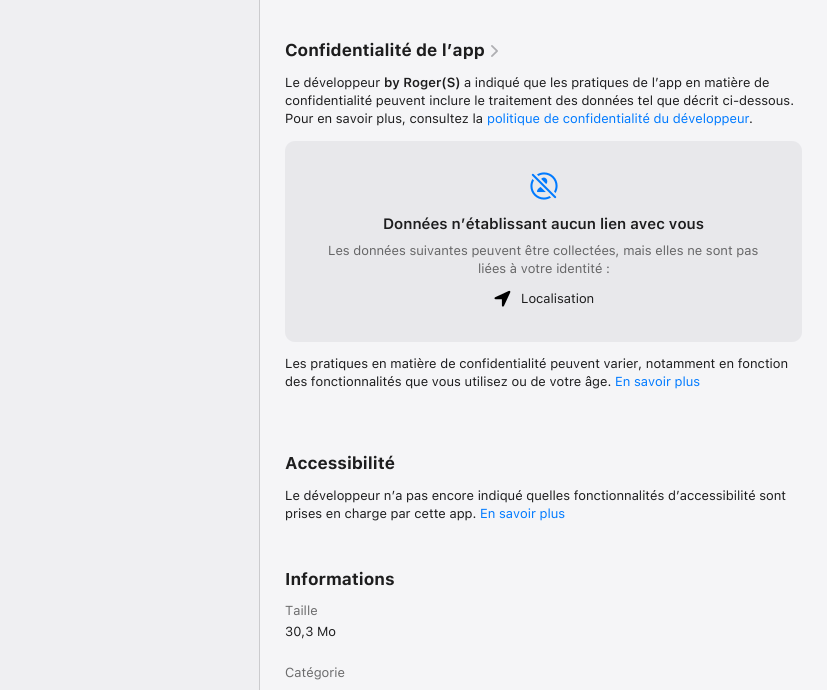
import math
import cairo

surface = cairo.ImageSurface(cairo.Format.RGB24, 827, 690)
ctx = cairo.Context(surface)
options = cairo.FontOptions()
options.set_hint_metrics(cairo.HintMetrics.OFF)
options.set_hint_style(cairo.HintStyle.NONE)
ctx.set_font_options(options)
ctx.set_miter_limit(4)


def ink(r, g, b):
    ctx.set_source_rgb(r / 255, g / 255, b / 255)


def write(x, y, s, family, size, color, bold=False, italic=False):
    ctx.select_font_face(family, cairo.FontSlant.ITALIC if italic else cairo.FontSlant.NORMAL, cairo.FontWeight.BOLD if bold else cairo.FontWeight.NORMAL)
    ctx.set_font_size(size)
    ink(*color)
    ctx.move_to(x, y)
    ctx.show_text(s)


def block(x, y, w, h, *color):
    ink(*color)
    ctx.rectangle(x, y, w, h)
    ctx.fill()


def round_path(x, y, w, h, r):
    ctx.new_sub_path()
    for i, (u, v) in enumerate([(x + w - r, y + h - r), (x + r, y + h - r), (x + r, y + r), (x + w - r, y + r)]):
        ctx.arc(u, v, r, i * math.pi / 2, (i + 1) * math.pi / 2)
    ctx.close_path()


def paste(path, x, y, w, h):
    ctx.save()
    ctx.set_source_surface(cairo.ImageSurface.create_from_png(path), x, y)
    ctx.rectangle(x, y, w, h)
    ctx.fill()
    ctx.restore()


s1 = dict(family="SF", size=17, color=(29, 29, 30), bold=True)
s2 = dict(family="SF", size=13, color=(29, 29, 30))
s3 = dict(family="SF SemiBold", size=13, color=(29, 29, 30))
s4 = dict(family="SF", size=13, color=(0, 122, 255))
s5 = dict(family="SF SemiBold", size=15, color=(29, 29, 30))
s6 = dict(family="SF", size=13, color=(102, 102, 103))
s7 = dict(family="SF", size=13, color=(108, 108, 109))

ink(245, 245, 247)
ctx.paint()
block(0, 0, 259, 690, 239, 239, 242)
block(259, 0, 1, 690, 203, 203, 206)
write(285, 56, "Confidentialité de l’app", **s1)
paste("pic1.png", 491, 45, 7, 12)
write(285, 87, "Le développeur", **s2)
write(384, 87, "by Roger(S)", **s3)
write(464, 87, "a indiqué que les pratiques de l’app en matière de", **s2)
write(285, 105, "confidentialité peuvent inclure le traitement des données tel que décrit ci‑dessous.", **s2)
write(285, 123, "Pour en savoir plus, consultez la", **s2)
write(487, 123, "politique de confidentialité du développeur", **s4)
write(749, 123, ".", **s2)
ink(232, 232, 235)
round_path(285, 141, 517, 201, 10)
ctx.fill()
paste("pic2.png", 530, 172, 28, 28)
write(383, 229, "Données n’établissant aucun lien avec vous", **s5)
write(328, 255, "Les données suivantes peuvent être collectées, mais elles ne sont pas", **s6)
write(478, 273, "liées à votre identité :", **s6)
paste("pic3.png", 494, 290, 17, 17)
write(521, 303, "Localisation", **s2)
write(285, 368, "Les pratiques en matière de confidentialité peuvent varier, notamment en fonction", **s2)
write(285, 386, "des fonctionnalités que vous utilisez ou de votre âge.", **s2)
write(615, 386, "En savoir plus", **s4)
write(285, 469, "Accessibilité", **s1)
write(285, 500, "Le développeur n’a pas encore indiqué quelles fonctionnalités d’accessibilité sont", **s2)
write(285, 518, "prises en charge par cette app.", **s2)
write(480, 518, "En savoir plus", **s4)
write(285, 585, "Informations", **s1)
write(285, 615, "Taille", **s7)
write(285, 636, "30,3 Mo", **s2)
write(285, 677, "Catégorie", **s7)
surface.write_to_png("screenshot.png")
